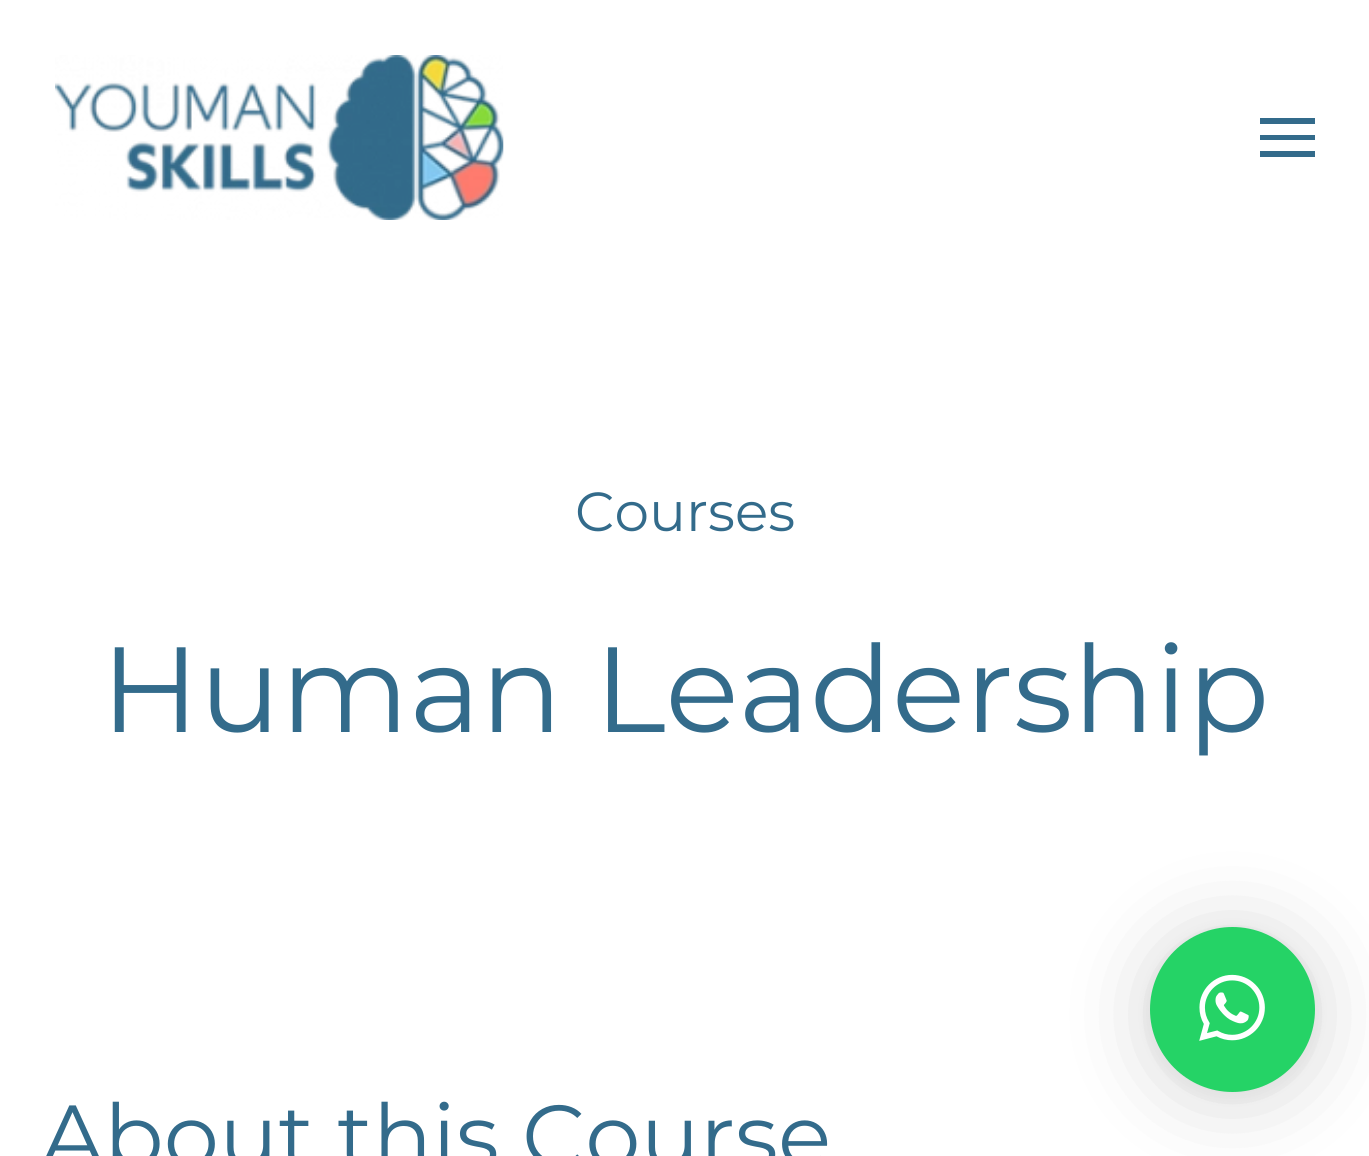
import math
import cairo

surface = cairo.ImageSurface(cairo.Format.RGB24, 1369, 1156)
ctx = cairo.Context(surface)
options = cairo.FontOptions()
options.set_hint_metrics(cairo.HintMetrics.OFF)
options.set_hint_style(cairo.HintStyle.NONE)
ctx.set_font_options(options)
ctx.set_miter_limit(4)


def ink(r, g, b):
    ctx.set_source_rgb(r / 255, g / 255, b / 255)


def write(x, y, s, family, size, color, bold=False, italic=False):
    ctx.select_font_face(family, cairo.FontSlant.ITALIC if italic else cairo.FontSlant.NORMAL, cairo.FontWeight.BOLD if bold else cairo.FontWeight.NORMAL)
    ctx.set_font_size(size)
    ink(*color)
    ctx.move_to(x, y)
    ctx.show_text(s)


def block(x, y, w, h, *color):
    ink(*color)
    ctx.rectangle(x, y, w, h)
    ctx.fill()


def round_path(x, y, w, h, r):
    ctx.new_sub_path()
    for i, (u, v) in enumerate([(x + w - r, y + h - r), (x + r, y + h - r), (x + r, y + r), (x + w - r, y + r)]):
        ctx.arc(u, v, r, i * math.pi / 2, (i + 1) * math.pi / 2)
    ctx.close_path()


def blur_box(x, y, w, h, r, blur, alpha):
    ctx.push_group_with_content(cairo.Content.ALPHA)
    ctx.set_operator(cairo.Operator.SOURCE)
    for i in range(15, -16, -2):
        e = blur * i / 6
        if min(w, h) + 2 * e > 0:
            ctx.set_source_rgba(0, 0, 0, alpha * math.erfc((i - 1) / 8.5) / 2)
            round_path(x - e, y - e, w + 2 * e, h + 2 * e, max(0, min(r + e + blur * .6, min(w, h) / 2 + e)))
            ctx.fill()
    ctx.mask(ctx.pop_group())


def paste(path, x, y, w, h):
    ctx.save()
    ctx.set_source_surface(cairo.ImageSurface.create_from_png(path), x, y)
    ctx.rectangle(x, y, w, h)
    ctx.fill()
    ctx.restore()


s1 = dict(family="Montserrat", size=55, color=(51, 107, 139))
s2 = dict(family="Montserrat", size=121, color=(51, 107, 139))
s3 = dict(family="Montserrat", size=88, color=(51, 107, 139))

ink(255, 255, 255)
ctx.paint()
paste("pic1.png", 55, 55, 449, 165)
block(1260, 118, 55, 6, 51, 107, 139)
block(1260, 135, 55, 5, 51, 107, 139)
block(1260, 151, 55, 6, 51, 107, 139)
write(575, 531, "Courses", **s1)
write(101, 732, "Human Leadership", **s2)
write(41, 1167, "About this Course", **s3)
ink(0, 0, 0)
blur_box(1150, 932, 165, 165, 82.5, 44, 0.16)
blur_box(1150, 930, 165, 165, 82.5, 8, 0.06)
ink(37, 211, 102)
ctx.arc(1232.5, 1009.5, 82.5, 0, 2 * math.pi)
ctx.fill()
paste("pic2.png", 1199, 974, 66, 67)
surface.write_to_png("screenshot.png")
